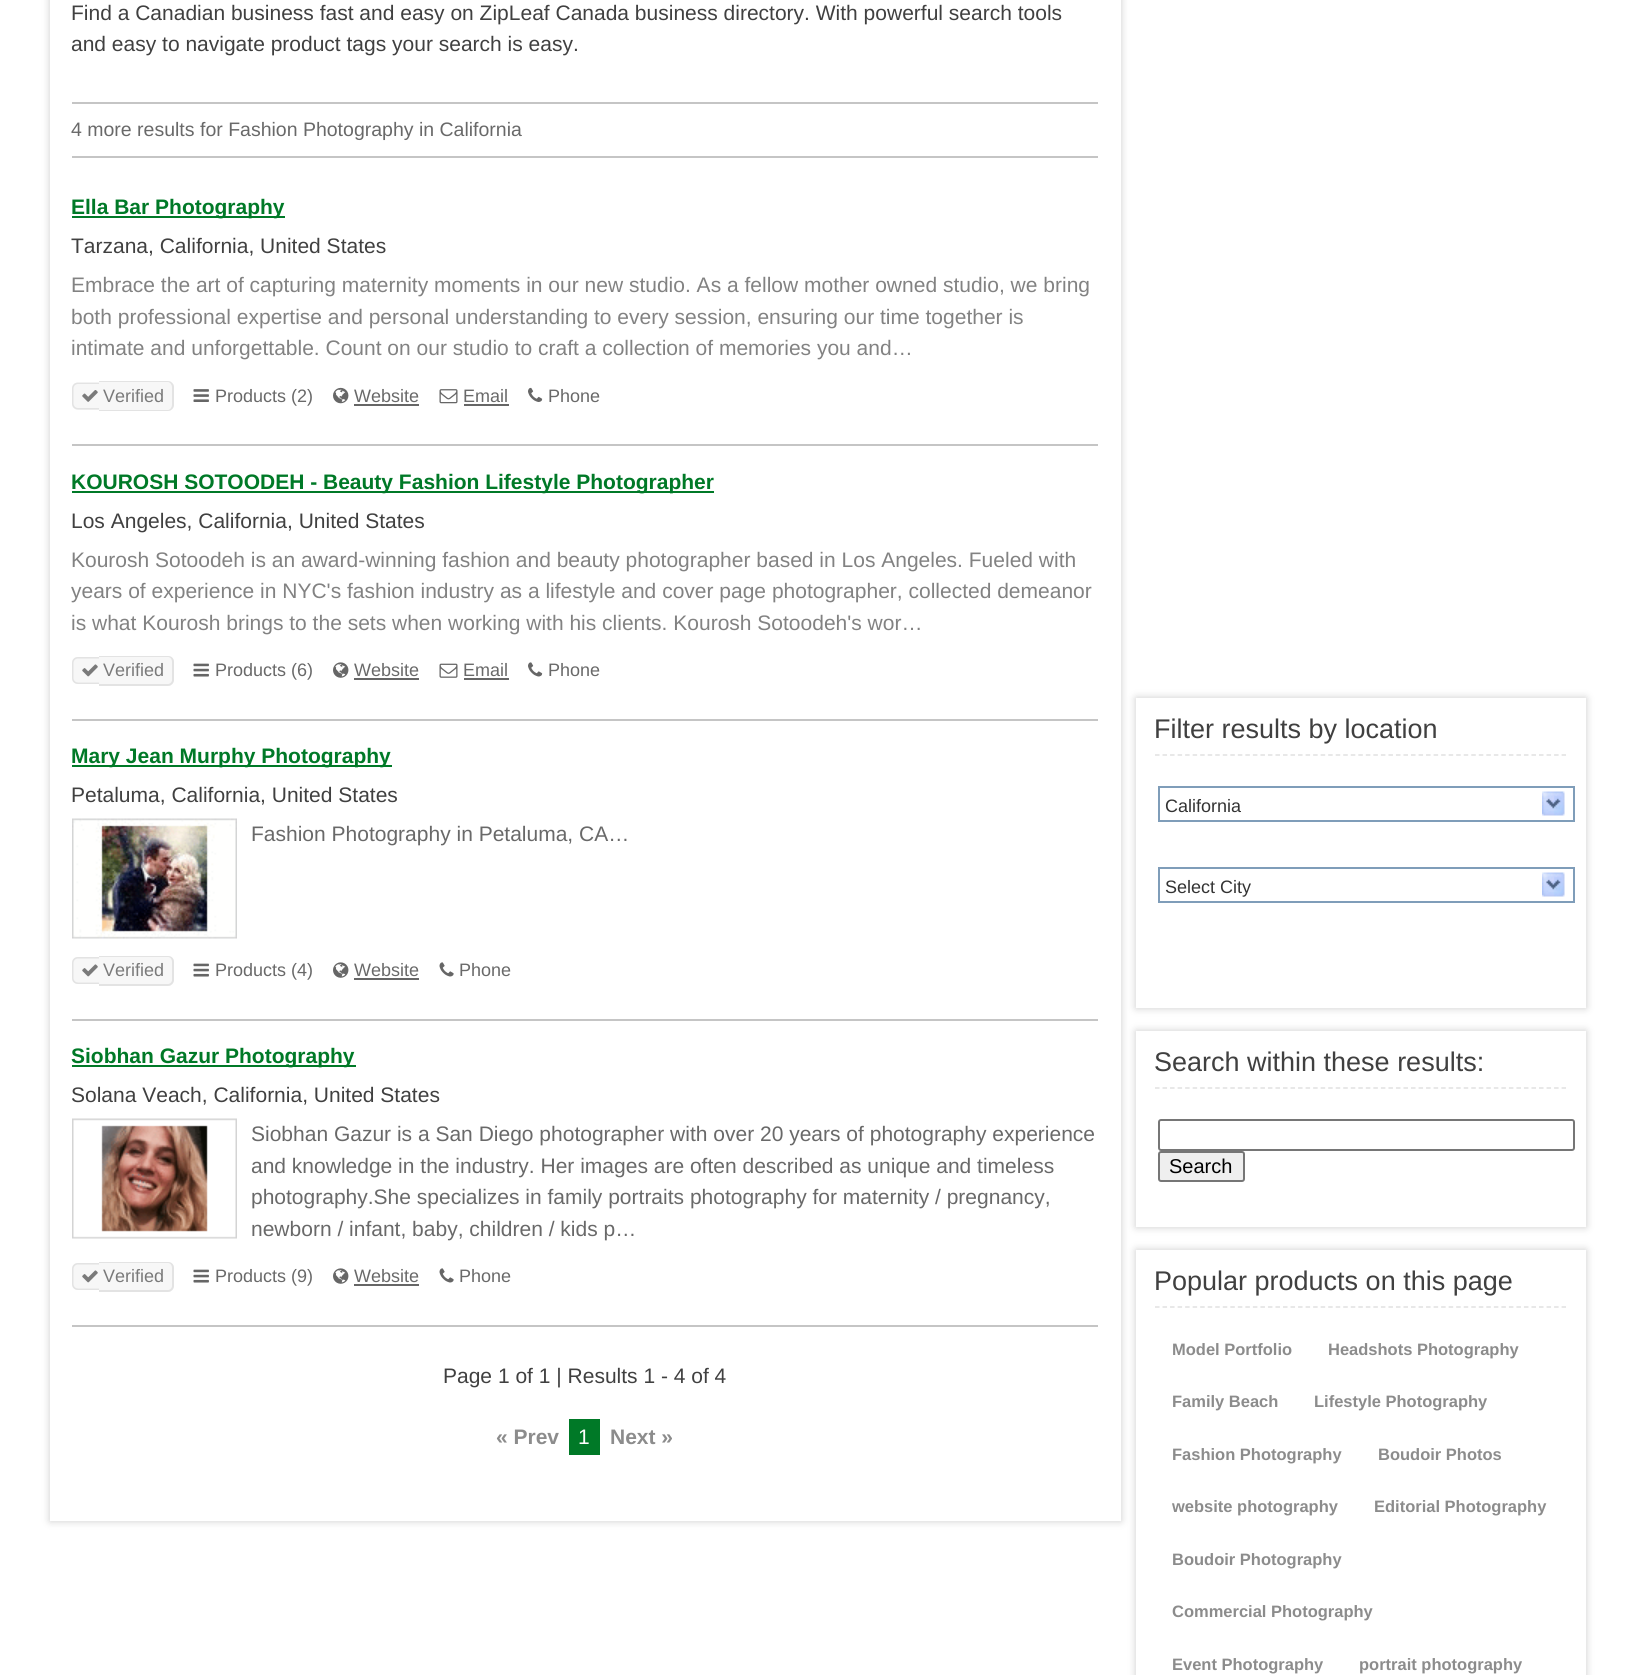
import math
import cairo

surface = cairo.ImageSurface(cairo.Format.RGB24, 1633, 1675)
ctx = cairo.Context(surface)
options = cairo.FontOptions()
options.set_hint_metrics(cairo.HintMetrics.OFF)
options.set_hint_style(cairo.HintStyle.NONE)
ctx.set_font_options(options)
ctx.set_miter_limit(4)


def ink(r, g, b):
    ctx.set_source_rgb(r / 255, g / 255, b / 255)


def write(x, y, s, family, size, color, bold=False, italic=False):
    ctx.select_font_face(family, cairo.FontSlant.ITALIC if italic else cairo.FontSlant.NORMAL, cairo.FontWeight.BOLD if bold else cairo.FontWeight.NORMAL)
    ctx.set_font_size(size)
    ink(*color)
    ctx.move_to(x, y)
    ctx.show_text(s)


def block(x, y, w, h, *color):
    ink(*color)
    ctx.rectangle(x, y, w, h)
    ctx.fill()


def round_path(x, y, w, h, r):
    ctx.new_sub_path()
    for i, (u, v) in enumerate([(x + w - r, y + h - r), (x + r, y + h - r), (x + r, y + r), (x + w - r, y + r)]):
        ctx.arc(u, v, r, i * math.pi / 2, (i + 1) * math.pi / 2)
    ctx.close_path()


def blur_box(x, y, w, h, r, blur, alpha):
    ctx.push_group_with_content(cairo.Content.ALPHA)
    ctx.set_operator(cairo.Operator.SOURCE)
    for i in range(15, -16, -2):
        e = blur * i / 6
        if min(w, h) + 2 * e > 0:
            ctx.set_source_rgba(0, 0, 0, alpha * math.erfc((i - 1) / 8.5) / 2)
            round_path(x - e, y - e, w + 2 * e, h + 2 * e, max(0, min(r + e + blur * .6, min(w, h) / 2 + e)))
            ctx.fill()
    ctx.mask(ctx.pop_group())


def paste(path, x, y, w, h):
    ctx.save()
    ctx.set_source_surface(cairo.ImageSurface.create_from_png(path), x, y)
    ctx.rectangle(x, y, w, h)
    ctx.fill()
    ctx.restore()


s1 = dict(family="Liberation Sans", size=21, color=(64, 64, 64))
s2 = dict(family="Liberation Sans", size=19.5, color=(105, 105, 105))
s3 = dict(family="Liberation Sans", size=21, color=(0, 121, 39), bold=True)
s4 = dict(family="Liberation Sans", size=21, color=(130, 130, 130))
s5 = dict(family="Liberation Sans", size=18, color=(122, 122, 122))
s6 = dict(family="Liberation Sans", size=18, color=(105, 105, 105))
s7 = dict(family="Liberation Sans", size=21, color=(105, 105, 105))
s8 = dict(family="Liberation Sans", size=21, color=(140, 140, 140), bold=True)
s9 = dict(family="Liberation Sans", size=21, color=(255, 255, 255))
s10 = dict(family="Liberation Sans", size=27, color=(64, 64, 64))
s11 = dict(family="Liberation Sans", size=18, color=(51, 51, 51))
s12 = dict(family="Liberation Sans", size=20, color=(0, 0, 0))
s13 = dict(family="Liberation Sans", size=16.5, color=(140, 140, 140), bold=True)

ink(255, 255, 255)
ctx.paint()
ink(204, 204, 204)
blur_box(50, -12, 1071, 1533, 0, 4, 1)
block(50, 0, 1071, 1521, 255, 255, 255)
write(71, 20, "Find a Canadian business fast and easy on ZipLeaf Canada business directory. With powerful search tools", **s1)
write(71, 51, "and easy to navigate product tags your search is easy.", **s1)
block(72, 102, 1026, 2, 197, 197, 197)
block(72, 156, 1026, 2, 197, 197, 197)
write(71, 136, "4 more results for Fashion Photography in California", **s2)
block(72, 444, 1026, 2, 197, 197, 197)
block(72, 216, 213, 2, 0, 121, 39)
write(71, 214, "Ella Bar Photography", **s3)
write(71, 253, "Tarzana, California, United States", **s1)
write(71, 292, "Embrace the art of capturing maternity moments in our new studio. As a fellow mother owned studio, we bring", **s4)
write(71, 324, "both professional expertise and personal understanding to every session, ensuring our time together is", **s4)
write(71, 355, "intimate and unforgettable. Count on our studio to craft a collection of memories you and…", **s4)
ink(247, 247, 247)
ctx.new_path()
ctx.move_to(78, 383)
ctx.line_to(99, 383)
ctx.line_to(99, 410)
ctx.line_to(78, 410)
ctx.curve_to(74.5, 410, 72, 407.5, 72, 404)
ctx.line_to(72, 389)
ctx.curve_to(72, 385.5, 74.5, 383, 78, 383)
ctx.close_path()
ctx.fill()
ink(227, 227, 227)
ctx.set_fill_rule(cairo.FillRule.EVEN_ODD)
ctx.new_path()
ctx.move_to(78, 382.5)
ctx.line_to(99, 382.5)
ctx.line_to(99, 409.5)
ctx.line_to(78, 409.5)
ctx.curve_to(74.5, 409.5, 72, 407, 72, 403.5)
ctx.line_to(72, 388.5)
ctx.curve_to(72, 385, 74.5, 382.5, 78, 382.5)
ctx.close_path()
ctx.move_to(78, 384)
ctx.line_to(99, 384)
ctx.line_to(99, 408)
ctx.line_to(78, 408)
ctx.curve_to(75.5, 408, 73.5, 406, 73.5, 403.5)
ctx.line_to(73.5, 388.5)
ctx.curve_to(73.5, 386, 75.5, 384, 78, 384)
ctx.close_path()
ctx.fill()
ink(247, 247, 247)
ctx.new_path()
ctx.move_to(99, 381)
ctx.line_to(168, 381)
ctx.curve_to(171.5, 381, 174, 383.5, 174, 387)
ctx.line_to(174, 405)
ctx.curve_to(174, 408.5, 171.5, 411, 168, 411)
ctx.line_to(99, 411)
ctx.close_path()
ctx.fill()
ink(227, 227, 227)
ctx.new_path()
ctx.move_to(99, 381)
ctx.line_to(168, 381)
ctx.curve_to(171, 381, 174, 384, 174, 387)
ctx.line_to(174, 405)
ctx.curve_to(174, 408, 171, 411, 168, 411)
ctx.line_to(99, 411)
ctx.close_path()
ctx.move_to(99, 382)
ctx.line_to(168, 382)
ctx.curve_to(170, 382, 172, 385, 172, 387)
ctx.line_to(172, 405)
ctx.curve_to(172, 407, 170, 410, 168, 410)
ctx.line_to(99, 410)
ctx.close_path()
ctx.fill()
paste("pic1.png", 82, 390, 16, 12)
write(103, 402, "Verified", **s5)
paste("pic2.png", 193, 389, 16, 13)
write(215, 402, "Products (2)", **s6)
paste("pic3.png", 333, 387, 16, 17)
write(354, 402, "Website", **s6)
block(354, 404, 65, 2, 102, 102, 102)
paste("pic4.png", 439, 389, 19, 15)
write(463, 402, "Email", **s6)
block(464, 404, 45, 2, 102, 102, 102)
paste("pic5.png", 528, 387, 15, 15)
write(548, 402, "Phone", **s6)
block(72, 719, 1026, 2, 197, 197, 197)
block(72, 491, 642, 2, 0, 121, 39)
write(71, 489, "KOUROSH SOTOODEH - Beauty Fashion Lifestyle Photographer", **s3)
write(71, 528, "Los Angeles, California, United States", **s1)
write(71, 567, "Kourosh Sotoodeh is an award-winning fashion and beauty photographer based in Los Angeles. Fueled with", **s4)
write(71, 598, "years of experience in NYC's fashion industry as a lifestyle and cover page photographer, collected demeanor", **s4)
write(71, 630, "is what Kourosh brings to the sets when working with his clients. Kourosh Sotoodeh's wor…", **s4)
ink(247, 247, 247)
ctx.new_path()
ctx.move_to(78, 657)
ctx.line_to(99, 657)
ctx.line_to(99, 684)
ctx.line_to(78, 684)
ctx.curve_to(74.5, 684, 72, 681.5, 72, 678)
ctx.line_to(72, 663)
ctx.curve_to(72, 659.5, 74.5, 657, 78, 657)
ctx.close_path()
ctx.fill()
ink(227, 227, 227)
ctx.new_path()
ctx.move_to(78, 657)
ctx.line_to(99, 657)
ctx.line_to(99, 684)
ctx.line_to(78, 684)
ctx.curve_to(74.5, 684, 72, 681.5, 72, 678)
ctx.line_to(72, 663)
ctx.curve_to(72, 659.5, 74.5, 657, 78, 657)
ctx.close_path()
ctx.move_to(78, 658.5)
ctx.line_to(99, 658.5)
ctx.line_to(99, 682.5)
ctx.line_to(78, 682.5)
ctx.curve_to(75.5, 682.5, 73.5, 680.5, 73.5, 678)
ctx.line_to(73.5, 663)
ctx.curve_to(73.5, 660.5, 75.5, 658.5, 78, 658.5)
ctx.close_path()
ctx.fill()
ink(247, 247, 247)
ctx.new_path()
ctx.move_to(99, 656)
ctx.line_to(168, 656)
ctx.curve_to(171.5, 656, 174, 658.5, 174, 662)
ctx.line_to(174, 680)
ctx.curve_to(174, 683.5, 171.5, 686, 168, 686)
ctx.line_to(99, 686)
ctx.close_path()
ctx.fill()
ink(227, 227, 227)
ctx.new_path()
ctx.move_to(99, 656)
ctx.line_to(168, 656)
ctx.curve_to(171, 656, 174, 658, 174, 662)
ctx.line_to(174, 680)
ctx.curve_to(174, 683, 171, 686, 168, 686)
ctx.line_to(99, 686)
ctx.close_path()
ctx.move_to(99, 657)
ctx.line_to(168, 657)
ctx.curve_to(170, 657, 172, 659, 172, 662)
ctx.line_to(172, 680)
ctx.curve_to(172, 682, 170, 684, 168, 684)
ctx.line_to(99, 684)
ctx.close_path()
ctx.fill()
paste("pic6.png", 82, 664, 16, 13)
write(103, 676, "Verified", **s5)
paste("pic7.png", 193, 663, 16, 14)
write(215, 676, "Products (6)", **s6)
paste("pic8.png", 333, 662, 16, 16)
write(354, 676, "Website", **s6)
block(354, 678, 65, 2, 102, 102, 102)
paste("pic9.png", 439, 663, 19, 15)
write(463, 676, "Email", **s6)
block(464, 678, 45, 2, 102, 102, 102)
paste("pic10.png", 528, 662, 15, 15)
write(548, 676, "Phone", **s6)
block(72, 1019, 1026, 2, 197, 197, 197)
block(72, 765, 320, 2, 0, 121, 39)
write(71, 763, "Mary Jean Murphy Photography", **s3)
write(71, 802, "Petaluma, California, United States", **s1)
paste("pic11.png", 72, 818, 165, 121)
write(251, 841, "Fashion Photography in Petaluma, CA…", **s7)
ink(247, 247, 247)
ctx.new_path()
ctx.move_to(78, 957)
ctx.line_to(99, 957)
ctx.line_to(99, 984)
ctx.line_to(78, 984)
ctx.curve_to(74.5, 984, 72, 981.5, 72, 978)
ctx.line_to(72, 963)
ctx.curve_to(72, 959.5, 74.5, 957, 78, 957)
ctx.close_path()
ctx.fill()
ink(227, 227, 227)
ctx.new_path()
ctx.move_to(78, 957)
ctx.line_to(99, 957)
ctx.line_to(99, 984)
ctx.line_to(78, 984)
ctx.curve_to(74.5, 984, 72, 981.5, 72, 978)
ctx.line_to(72, 963)
ctx.curve_to(72, 959.5, 74.5, 957, 78, 957)
ctx.close_path()
ctx.move_to(78, 958.5)
ctx.line_to(99, 958.5)
ctx.line_to(99, 982.5)
ctx.line_to(78, 982.5)
ctx.curve_to(75.5, 982.5, 73.5, 980.5, 73.5, 978)
ctx.line_to(73.5, 963)
ctx.curve_to(73.5, 960.5, 75.5, 958.5, 78, 958.5)
ctx.close_path()
ctx.fill()
ink(247, 247, 247)
ctx.new_path()
ctx.move_to(99, 956)
ctx.line_to(168, 956)
ctx.curve_to(171.5, 956, 174, 958.5, 174, 962)
ctx.line_to(174, 980)
ctx.curve_to(174, 983.5, 171.5, 986, 168, 986)
ctx.line_to(99, 986)
ctx.close_path()
ctx.fill()
ink(227, 227, 227)
ctx.new_path()
ctx.move_to(99, 956)
ctx.line_to(168, 956)
ctx.curve_to(171, 956, 174, 958, 174, 962)
ctx.line_to(174, 980)
ctx.curve_to(174, 983, 171, 986, 168, 986)
ctx.line_to(99, 986)
ctx.close_path()
ctx.move_to(99, 957)
ctx.line_to(168, 957)
ctx.curve_to(170, 957, 172, 959, 172, 962)
ctx.line_to(172, 980)
ctx.curve_to(172, 982, 170, 984, 168, 984)
ctx.line_to(99, 984)
ctx.close_path()
ctx.fill()
paste("pic6.png", 82, 964, 16, 13)
write(103, 976, "Verified", **s5)
paste("pic7.png", 193, 963, 16, 14)
write(215, 976, "Products (4)", **s6)
paste("pic8.png", 333, 962, 16, 16)
write(354, 976, "Website", **s6)
block(354, 978, 65, 2, 102, 102, 102)
paste("pic12.png", 439, 962, 15, 15)
write(459, 976, "Phone", **s6)
block(72, 1325, 1026, 2, 197, 197, 197)
block(72, 1065, 284, 2, 0, 121, 39)
write(71, 1063, "Siobhan Gazur Photography", **s3)
write(71, 1102, "Solana Veach, California, United States", **s1)
paste("pic13.png", 72, 1118, 165, 121)
write(251, 1141, "Siobhan Gazur is a San Diego photographer with over 20 years of photography experience", **s7)
write(251, 1173, "and knowledge in the industry. Her images are often described as unique and timeless", **s7)
write(251, 1204, "photography.She specializes in family portraits photography for maternity / pregnancy,", **s7)
write(251, 1236, "newborn / infant, baby, children / kids p…", **s7)
ink(247, 247, 247)
ctx.new_path()
ctx.move_to(78, 1263)
ctx.line_to(99, 1263)
ctx.line_to(99, 1290)
ctx.line_to(78, 1290)
ctx.curve_to(74.5, 1290, 72, 1287.5, 72, 1284)
ctx.line_to(72, 1269)
ctx.curve_to(72, 1265.5, 74.5, 1263, 78, 1263)
ctx.close_path()
ctx.fill()
ink(227, 227, 227)
ctx.new_path()
ctx.move_to(78, 1263)
ctx.line_to(99, 1263)
ctx.line_to(99, 1290)
ctx.line_to(78, 1290)
ctx.curve_to(74.5, 1290, 72, 1287.5, 72, 1284)
ctx.line_to(72, 1269)
ctx.curve_to(72, 1265.5, 74.5, 1263, 78, 1263)
ctx.close_path()
ctx.move_to(78, 1264.5)
ctx.line_to(99, 1264.5)
ctx.line_to(99, 1288.5)
ctx.line_to(78, 1288.5)
ctx.curve_to(75.5, 1288.5, 73.5, 1286.5, 73.5, 1284)
ctx.line_to(73.5, 1269)
ctx.curve_to(73.5, 1266.5, 75.5, 1264.5, 78, 1264.5)
ctx.close_path()
ctx.fill()
ink(247, 247, 247)
ctx.new_path()
ctx.move_to(99, 1262)
ctx.line_to(168, 1262)
ctx.curve_to(171.5, 1262, 174, 1264.5, 174, 1268)
ctx.line_to(174, 1286)
ctx.curve_to(174, 1289.5, 171.5, 1292, 168, 1292)
ctx.line_to(99, 1292)
ctx.close_path()
ctx.fill()
ink(227, 227, 227)
ctx.new_path()
ctx.move_to(99, 1262)
ctx.line_to(168, 1262)
ctx.curve_to(171, 1262, 174, 1264, 174, 1268)
ctx.line_to(174, 1286)
ctx.curve_to(174, 1289, 171, 1292, 168, 1292)
ctx.line_to(99, 1292)
ctx.close_path()
ctx.move_to(99, 1263)
ctx.line_to(168, 1263)
ctx.curve_to(170, 1263, 172, 1265, 172, 1268)
ctx.line_to(172, 1286)
ctx.curve_to(172, 1288, 170, 1290, 168, 1290)
ctx.line_to(99, 1290)
ctx.close_path()
ctx.fill()
paste("pic6.png", 82, 1270, 16, 13)
write(103, 1282, "Verified", **s5)
paste("pic7.png", 193, 1269, 16, 14)
write(215, 1282, "Products (9)", **s6)
paste("pic8.png", 333, 1268, 16, 16)
write(354, 1282, "Website", **s6)
block(354, 1284, 65, 2, 102, 102, 102)
paste("pic12.png", 439, 1268, 15, 15)
write(459, 1282, "Phone", **s6)
write(443, 1383, "Page 1 of 1 | Results 1 - 4 of 4", **s1)
write(496, 1444, "« Prev", **s8)
block(569, 1419, 31, 36, 0, 121, 39)
write(578, 1444, "1", **s9)
write(610, 1444, "Next »", **s8)
ink(204, 204, 204)
blur_box(1136, 698, 450, 310, 0, 4, 1)
block(1136, 698, 450, 310, 255, 255, 255)
ctx.new_path()
ctx.move_to(1155, 755)
ctx.line_to(1566, 755)
ink(224, 224, 224)
ctx.set_line_width(1.5)
ctx.set_dash([4.5, 3.03])
ctx.stroke()
write(1154, 738, "Filter results by location", **s10)
paste("pic14.png", 1542, 791, 23, 25)
ctx.rectangle(1159, 787, 415, 34)
ink(127, 157, 185)
ctx.set_line_width(2)
ctx.set_dash([])
ctx.stroke()
write(1165, 812, "California", **s11)
paste("pic14.png", 1542, 872, 23, 25)
ctx.rectangle(1159, 868, 415, 34)
ink(127, 157, 185)
ctx.stroke()
write(1165, 893, "Select City", **s11)
ink(204, 204, 204)
blur_box(1136, 1031, 450, 196, 0, 4, 1)
block(1136, 1031, 450, 196, 255, 255, 255)
ctx.new_path()
ctx.move_to(1155, 1088)
ctx.line_to(1566, 1088)
ink(224, 224, 224)
ctx.set_line_width(1.5)
ctx.set_dash([4.5, 3.03])
ctx.stroke()
write(1154, 1071, "Search within these results:", **s10)
round_path(1159, 1120, 415, 30, 2)
ink(118, 118, 118)
ctx.set_line_width(2)
ctx.set_dash([])
ctx.stroke()
ink(239, 239, 239)
round_path(1159, 1152, 85, 29, 2)
ctx.fill_preserve()
ink(118, 118, 118)
ctx.stroke()
write(1169, 1173, "Search", **s12)
ink(204, 204, 204)
blur_box(1136, 1250, 450, 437, 0, 4, 1)
block(1136, 1250, 450, 425, 255, 255, 255)
ctx.new_path()
ctx.move_to(1155, 1307)
ctx.line_to(1566, 1307)
ink(224, 224, 224)
ctx.set_line_width(1.5)
ctx.set_dash([4.5, 3.03])
ctx.stroke()
write(1154, 1290, "Popular products on this page", **s10)
write(1172, 1355, "Model Portfolio", **s13)
write(1328, 1355, "Headshots Photography", **s13)
write(1172, 1407, "Family Beach", **s13)
write(1314, 1407, "Lifestyle Photography", **s13)
write(1172, 1460, "Fashion Photography", **s13)
write(1378, 1460, "Boudoir Photos", **s13)
write(1172, 1512, "website photography", **s13)
write(1374, 1512, "Editorial Photography", **s13)
write(1172, 1565, "Boudoir Photography", **s13)
write(1172, 1617, "Commercial Photography", **s13)
write(1172, 1670, "Event Photography", **s13)
write(1359, 1670, "portrait photography", **s13)
surface.write_to_png("screenshot.png")
